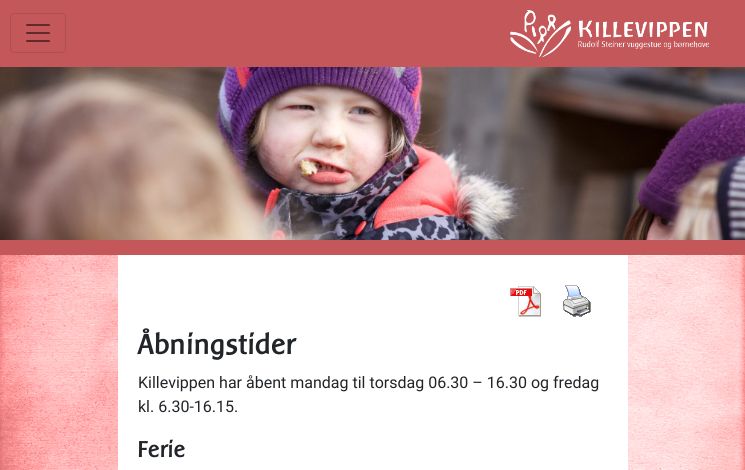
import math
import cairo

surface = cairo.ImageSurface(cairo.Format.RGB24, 745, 470)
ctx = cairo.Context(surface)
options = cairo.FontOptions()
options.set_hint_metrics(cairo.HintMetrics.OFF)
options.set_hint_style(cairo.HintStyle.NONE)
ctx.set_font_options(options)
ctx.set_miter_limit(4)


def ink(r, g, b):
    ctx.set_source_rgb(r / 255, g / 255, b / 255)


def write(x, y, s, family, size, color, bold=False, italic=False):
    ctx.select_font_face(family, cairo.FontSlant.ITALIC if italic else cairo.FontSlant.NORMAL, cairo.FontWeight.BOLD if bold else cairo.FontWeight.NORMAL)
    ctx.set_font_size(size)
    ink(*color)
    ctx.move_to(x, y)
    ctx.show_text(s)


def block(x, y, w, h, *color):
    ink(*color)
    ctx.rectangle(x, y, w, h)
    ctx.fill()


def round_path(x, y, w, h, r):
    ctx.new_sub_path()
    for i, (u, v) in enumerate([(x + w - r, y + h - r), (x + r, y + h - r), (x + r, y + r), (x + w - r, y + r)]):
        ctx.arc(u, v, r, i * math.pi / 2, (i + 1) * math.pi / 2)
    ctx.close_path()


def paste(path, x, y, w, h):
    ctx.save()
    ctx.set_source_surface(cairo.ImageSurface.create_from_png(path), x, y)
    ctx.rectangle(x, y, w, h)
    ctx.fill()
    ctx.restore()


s1 = dict(family="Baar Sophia", size=30, color=(33, 37, 41), bold=True)
s2 = dict(family="Roboto", size=16, color=(33, 37, 41))
s3 = dict(family="Baar Sophia", size=24, color=(33, 37, 41), bold=True)

ink(255, 255, 255)
ctx.paint()
block(0, 0, 745, 67, 195, 87, 90)
round_path(10.5, 13.5, 55, 39, 3.5)
ink(176, 78, 81)
ctx.set_line_width(1)
ctx.stroke()
paste("pic1.png", 26, 24, 24, 18)
paste("pic2.png", 510, 10, 199, 47)
paste("pic3.png", 0, 67, 745, 173)
block(0, 240, 745, 15, 195, 87, 90)
paste("pic4.png", 0, 255, 745, 215)
block(118, 255, 510, 215, 255, 255, 255)
paste("pic5.png", 510, 286, 31, 31)
paste("pic6.png", 563, 285, 28, 32)
write(138, 354, "Åbningstider", **s1)
write(138, 388, "Killevippen har åbent mandag til torsdag 06.30 – 16.30 og fredag", **s2)
write(138, 412, "kl. 6.30-16.15.", **s2)
write(138, 457, "Ferie", **s3)
surface.write_to_png("screenshot.png")
